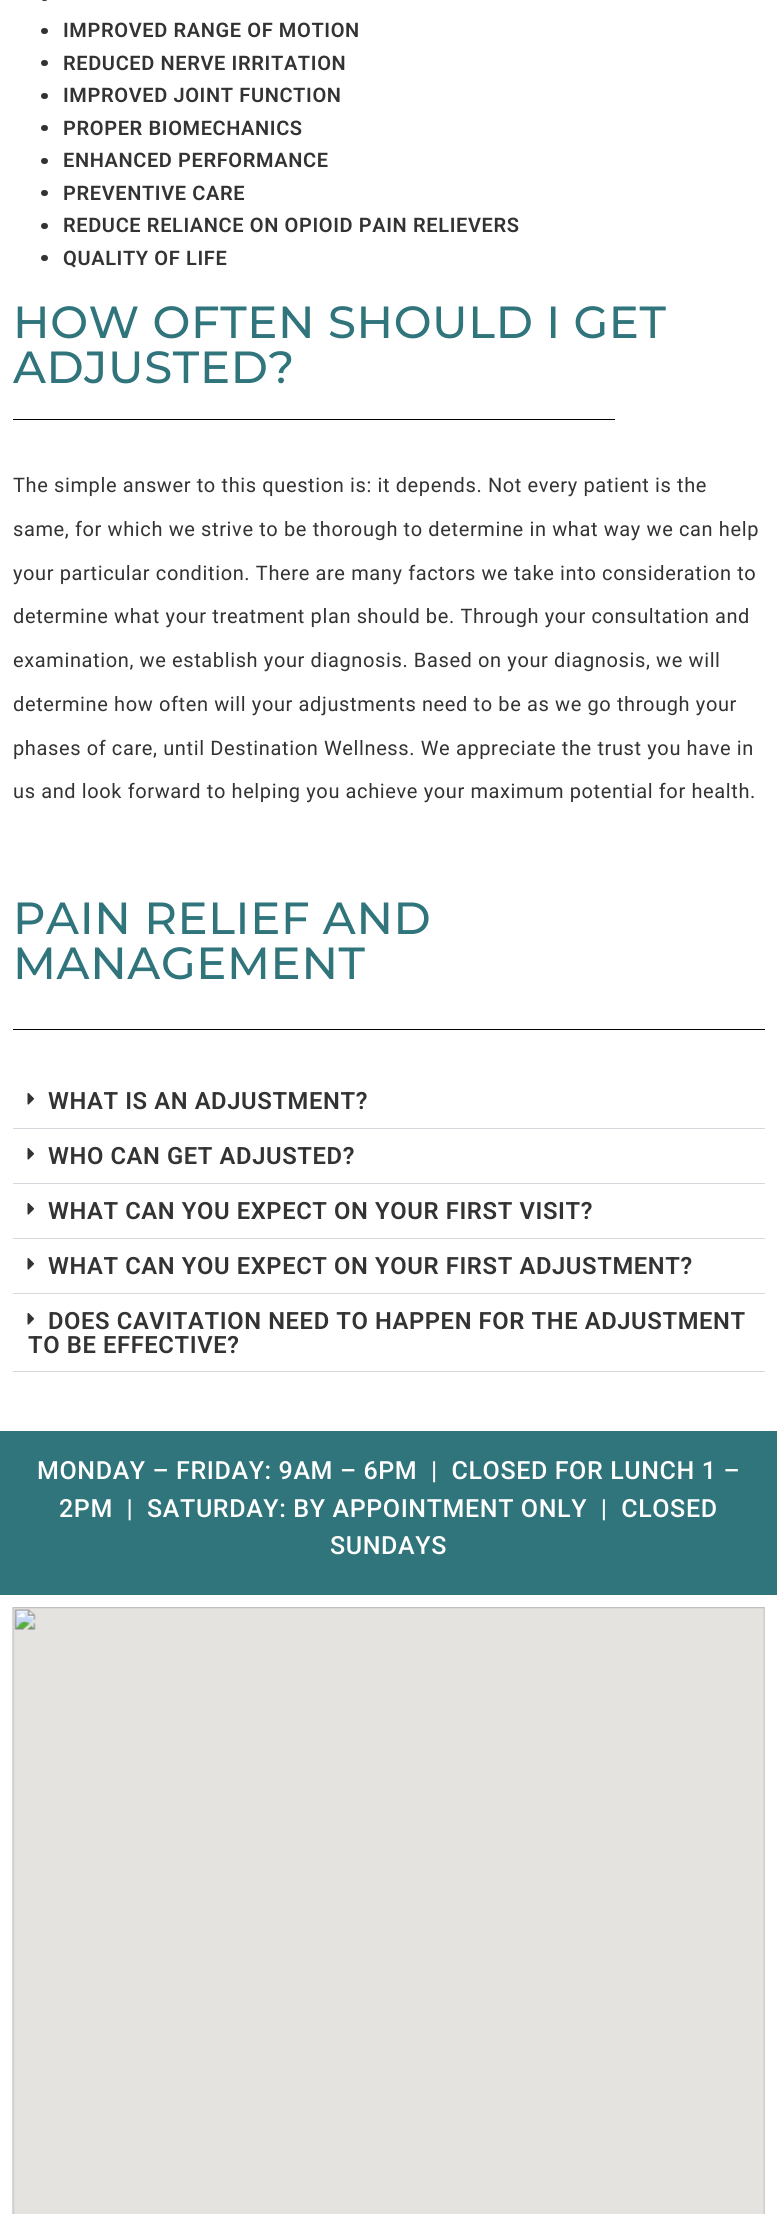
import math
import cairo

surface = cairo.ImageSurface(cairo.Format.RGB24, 777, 2214)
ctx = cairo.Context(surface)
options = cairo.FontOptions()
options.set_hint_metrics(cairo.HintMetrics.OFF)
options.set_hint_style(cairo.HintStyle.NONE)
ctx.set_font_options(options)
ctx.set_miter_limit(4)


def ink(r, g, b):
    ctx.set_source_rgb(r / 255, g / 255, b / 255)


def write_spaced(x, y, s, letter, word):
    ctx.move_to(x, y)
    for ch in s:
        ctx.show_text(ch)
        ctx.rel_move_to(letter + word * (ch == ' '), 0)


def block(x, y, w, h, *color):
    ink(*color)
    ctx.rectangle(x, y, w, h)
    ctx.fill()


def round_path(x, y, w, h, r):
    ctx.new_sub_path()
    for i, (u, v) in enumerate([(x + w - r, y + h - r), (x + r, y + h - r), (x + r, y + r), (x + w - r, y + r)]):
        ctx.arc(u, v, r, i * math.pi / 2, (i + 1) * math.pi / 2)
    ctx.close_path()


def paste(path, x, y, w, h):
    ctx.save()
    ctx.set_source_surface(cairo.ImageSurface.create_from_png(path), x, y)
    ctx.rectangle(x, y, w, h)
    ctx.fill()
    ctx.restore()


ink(255, 255, 255)
ctx.paint()
ink(51, 51, 51)
round_path(41, -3, 7, 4, 3)
ctx.fill()
round_path(41, 28, 7, 6, 3)
ctx.fill()
ctx.select_font_face("Roboto SemiBold")
ctx.set_font_size(20)
write_spaced(63, 37, "IMPROVED RANGE OF MOTION", 0.62, 0)
round_path(41, 60, 7, 6, 3)
ctx.fill()
write_spaced(63, 70, "REDUCED NERVE IRRITATION", 0.62, 0)
round_path(41, 93, 7, 6, 3)
ctx.fill()
write_spaced(63, 102, "IMPROVED JOINT FUNCTION", 0.62, 0)
round_path(41, 125, 7, 6, 3)
ctx.fill()
write_spaced(63, 135, "PROPER BIOMECHANICS", 0.62, 0)
round_path(41, 158, 7, 6, 3)
ctx.fill()
write_spaced(63, 167, "ENHANCED PERFORMANCE", 0.62, 0)
round_path(41, 190, 7, 6, 3)
ctx.fill()
write_spaced(63, 200, "PREVENTIVE CARE", 0.62, 0)
round_path(41, 223, 7, 6, 3)
ctx.fill()
write_spaced(63, 232, "REDUCE RELIANCE ON OPIOID PAIN RELIEVERS", 0.62, 0)
round_path(41, 255, 7, 6, 3)
ctx.fill()
write_spaced(63, 265, "QUALITY OF LIFE", 0.62, 0)
ctx.select_font_face("Montserrat Medium")
ctx.set_font_size(45)
ink(48, 116, 124)
write_spaced(13, 338, "HOW OFTEN SHOULD I GET", 0.62, 0)
write_spaced(13, 383, "ADJUSTED?", 0.62, 0)
block(13, 419, 602, 1, 0, 0, 0)
ctx.select_font_face("Roboto")
ctx.set_font_size(20)
ink(51, 51, 51)
write_spaced(13, 492, "The simple answer to this question is: it depends. Not every patient is the", 0.62, 0)
write_spaced(13, 536, "same, for which we strive to be thorough to determine in what way we can help", 0.62, 0)
write_spaced(13, 580, "your particular condition. There are many factors we take into consideration to", 0.62, 0)
write_spaced(13, 623, "determine what your treatment plan should be. Through your consultation and", 0.62, 0)
write_spaced(13, 667, "examination, we establish your diagnosis. Based on your diagnosis, we will", 0.62, 0)
write_spaced(13, 711, "determine how often will your adjustments need to be as we go through your", 0.62, 0)
write_spaced(13, 755, "phases of care, until Destination Wellness. We appreciate the trust you have in", 0.62, 0)
write_spaced(13, 798, "us and look forward to helping you achieve your maximum potential for health.", 0.62, 0)
ctx.select_font_face("Montserrat Medium")
ctx.set_font_size(45)
ink(48, 116, 124)
write_spaced(13, 934, "PAIN RELIEF AND", 0.62, 0)
write_spaced(13, 979, "MANAGEMENT", 0.62, 0)
block(13, 1029, 752, 1, 0, 0, 0)
block(13, 1128, 752, 1, 213, 216, 220)
paste("pic1.png", 27, 1093, 8, 12)
ctx.select_font_face("Roboto SemiBold")
ctx.set_font_size(23.75)
ink(51, 51, 51)
write_spaced(48, 1109, "WHAT IS AN ADJUSTMENT?", 0.62, 0)
block(13, 1183, 752, 1, 213, 216, 220)
paste("pic1.png", 27, 1148, 8, 12)
ink(51, 51, 51)
write_spaced(48, 1164, "WHO CAN GET ADJUSTED?", 0.62, 0)
block(13, 1238, 752, 1, 213, 216, 220)
paste("pic1.png", 27, 1203, 8, 12)
ink(51, 51, 51)
write_spaced(48, 1219, "WHAT CAN YOU EXPECT ON YOUR FIRST VISIT?", 0.62, 0)
block(13, 1293, 752, 1, 213, 216, 220)
paste("pic1.png", 27, 1258, 8, 12)
ink(51, 51, 51)
write_spaced(48, 1274, "WHAT CAN YOU EXPECT ON YOUR FIRST ADJUSTMENT?", 0.62, 0)
block(13, 1371, 752, 1, 213, 216, 220)
paste("pic1.png", 27, 1313, 8, 12)
ink(51, 51, 51)
write_spaced(48, 1329, "DOES CAVITATION NEED TO HAPPEN FOR THE ADJUSTMENT", 0.62, 0)
write_spaced(28, 1353, "TO BE EFFECTIVE?", 0.62, 0)
block(0, 1431, 777, 164, 48, 116, 124)
ctx.select_font_face("Roboto Medium")
ctx.set_font_size(25)
ink(255, 255, 255)
write_spaced(37, 1479, "MONDAY – FRIDAY: 9AM – 6PM  |  CLOSED FOR LUNCH 1 –", 0.62, 0)
write_spaced(59, 1517, "2PM  |  SATURDAY: BY APPOINTMENT ONLY  |  CLOSED", 0.62, 0)
write_spaced(330, 1554, "SUNDAYS", 0.62, 0)
paste("pic2.png", 12, 1607, 753, 607)
surface.write_to_png("screenshot.png")
